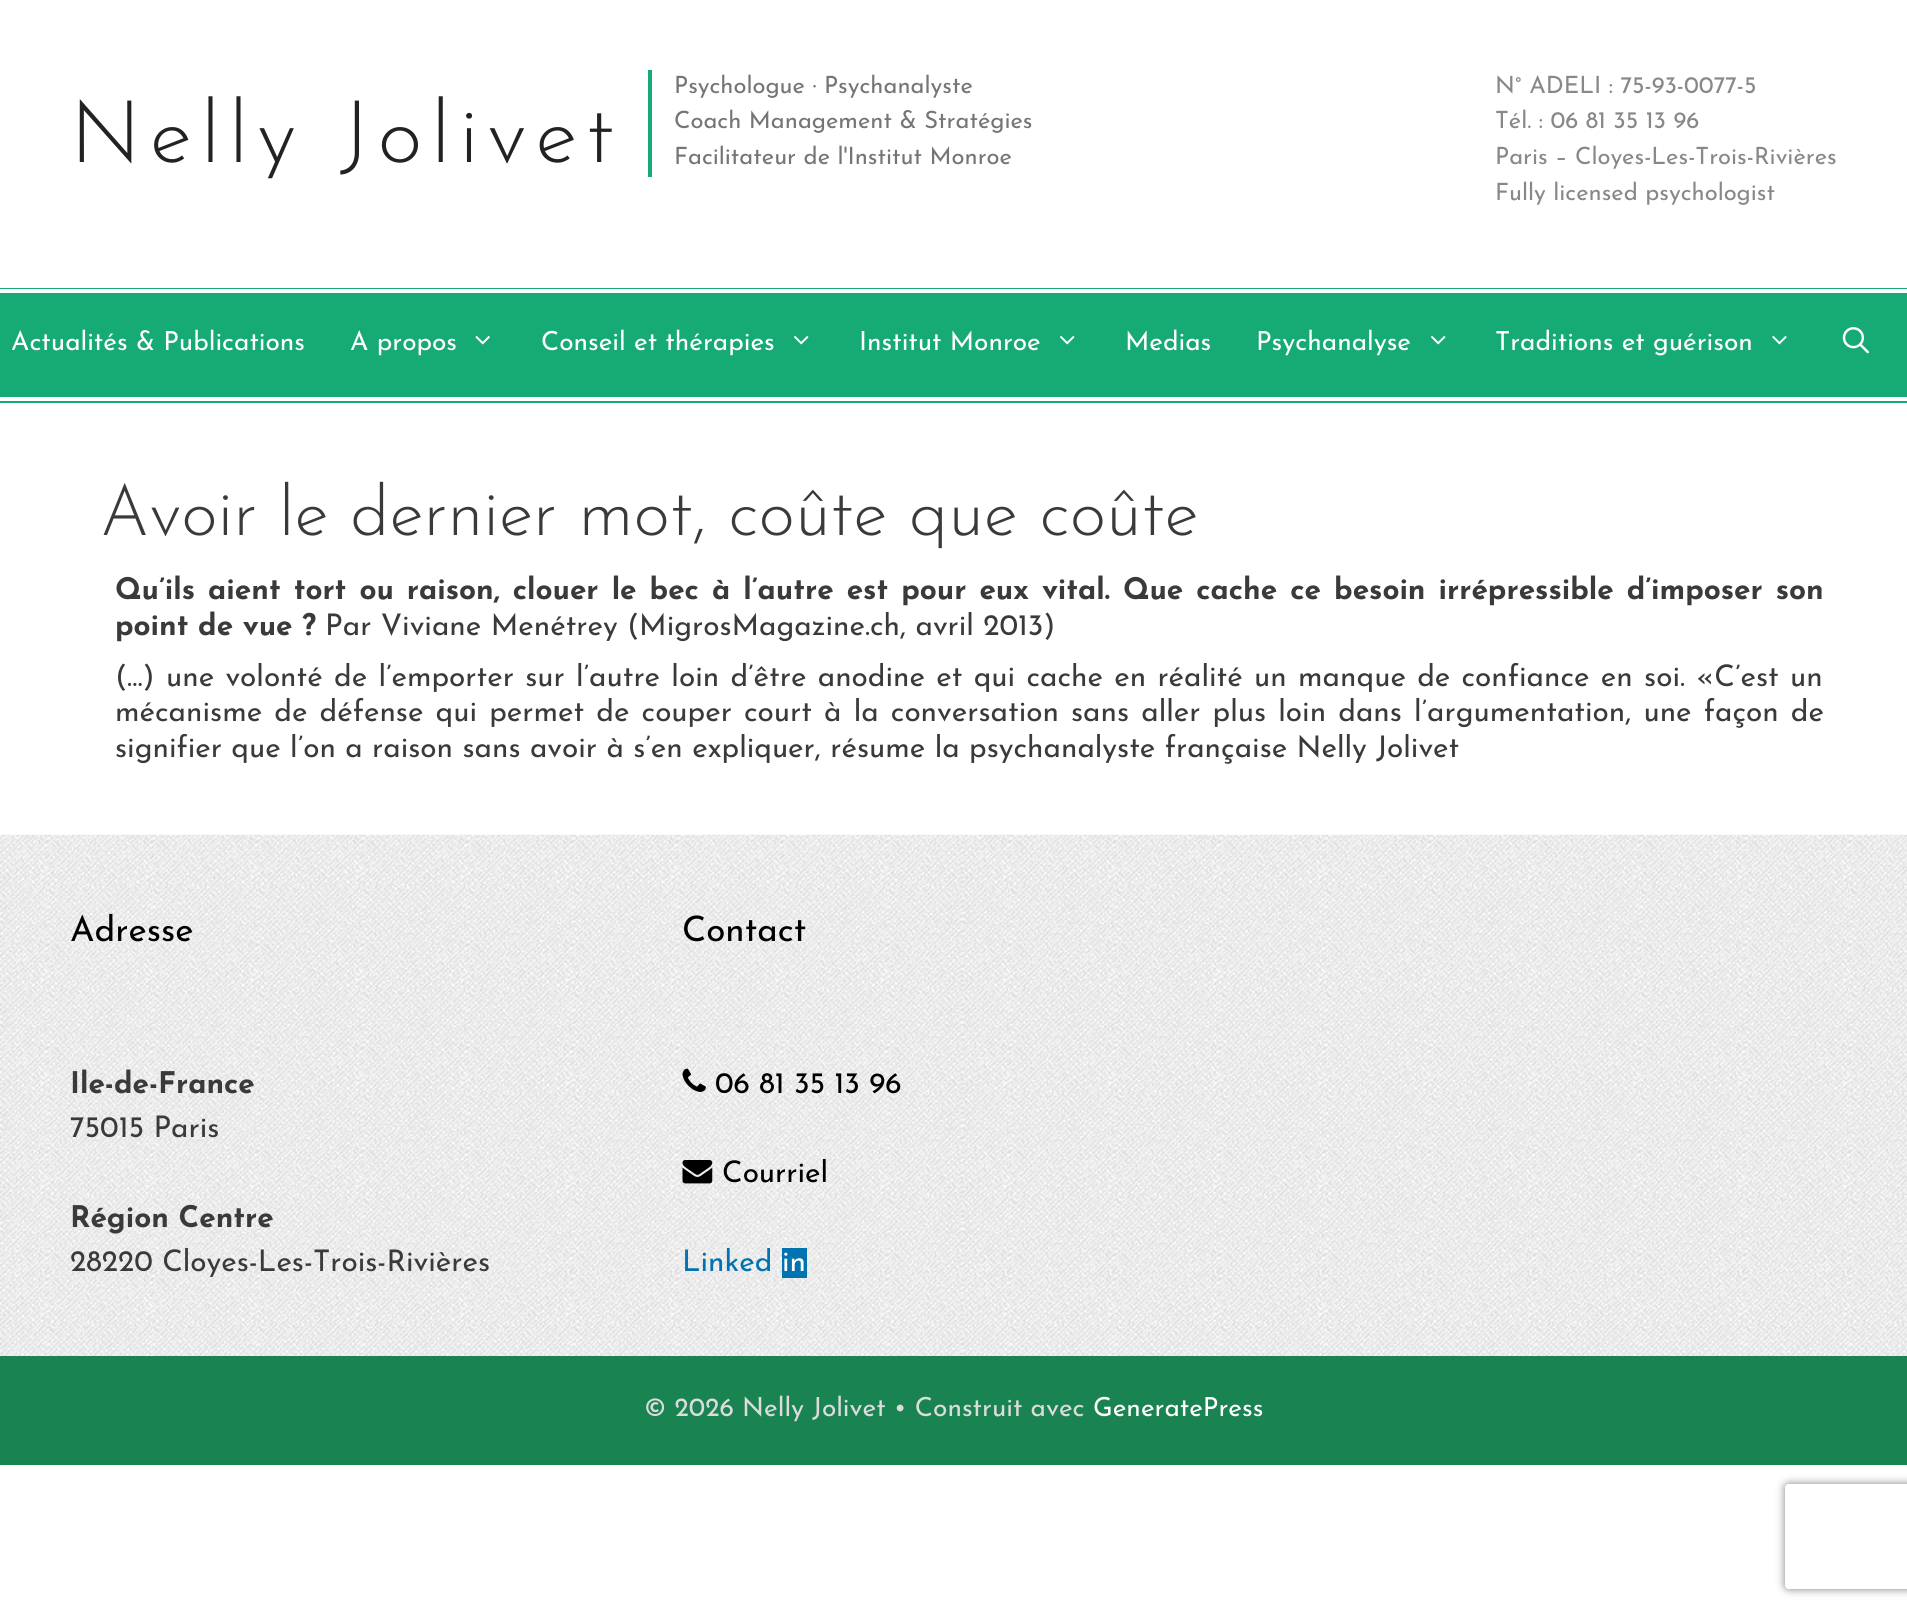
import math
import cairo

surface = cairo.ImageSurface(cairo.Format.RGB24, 1907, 1613)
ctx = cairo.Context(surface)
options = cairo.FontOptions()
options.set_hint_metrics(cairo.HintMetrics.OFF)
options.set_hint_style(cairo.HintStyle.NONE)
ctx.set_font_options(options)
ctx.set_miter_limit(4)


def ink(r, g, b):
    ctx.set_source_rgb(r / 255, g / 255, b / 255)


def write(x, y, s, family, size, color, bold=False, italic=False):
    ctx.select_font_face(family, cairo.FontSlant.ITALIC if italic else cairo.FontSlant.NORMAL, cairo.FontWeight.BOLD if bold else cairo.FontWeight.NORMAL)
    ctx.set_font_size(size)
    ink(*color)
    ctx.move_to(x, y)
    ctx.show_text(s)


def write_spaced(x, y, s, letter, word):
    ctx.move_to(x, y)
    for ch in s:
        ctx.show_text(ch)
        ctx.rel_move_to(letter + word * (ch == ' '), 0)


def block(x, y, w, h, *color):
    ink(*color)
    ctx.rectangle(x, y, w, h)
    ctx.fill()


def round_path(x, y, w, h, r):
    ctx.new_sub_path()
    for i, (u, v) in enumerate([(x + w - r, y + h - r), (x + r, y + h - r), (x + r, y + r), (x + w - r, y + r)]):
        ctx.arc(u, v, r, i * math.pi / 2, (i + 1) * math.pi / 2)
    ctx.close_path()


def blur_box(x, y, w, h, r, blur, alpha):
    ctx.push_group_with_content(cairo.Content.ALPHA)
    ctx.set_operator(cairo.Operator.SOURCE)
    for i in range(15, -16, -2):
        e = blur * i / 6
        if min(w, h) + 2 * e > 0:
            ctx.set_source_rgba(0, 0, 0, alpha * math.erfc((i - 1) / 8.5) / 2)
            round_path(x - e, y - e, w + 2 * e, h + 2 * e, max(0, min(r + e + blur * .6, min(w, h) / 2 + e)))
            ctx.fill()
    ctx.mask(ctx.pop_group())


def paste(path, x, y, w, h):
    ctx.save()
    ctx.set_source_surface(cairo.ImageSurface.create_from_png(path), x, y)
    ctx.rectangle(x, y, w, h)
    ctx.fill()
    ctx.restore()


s1 = dict(family="Josefin Sans", size=23.75, color=(117, 117, 117))
s2 = dict(family="Josefin Sans", size=23.75, color=(136, 136, 136))
s3 = dict(family="Josefin Sans", size=26.25, color=(255, 255, 255))
s4 = dict(family="Josefin Sans Light", size=70, color=(58, 58, 58))
s5 = dict(family="Josefin Sans", size=29.75, color=(58, 58, 58), bold=True)
s6 = dict(family="Josefin Sans", size=29.75, color=(58, 58, 58))
s7 = dict(family="Josefin Sans", size=35, color=(0, 0, 0))
s8 = dict(family="Josefin Sans", size=29.75, color=(0, 0, 0))
s9 = dict(family="Josefin Sans", size=29.75, color=(0, 115, 176))
s10 = dict(family="Josefin Sans", size=29.75, color=(255, 255, 255))
s11 = dict(family="Josefin Sans", size=26.25, color=(220, 220, 220))

ink(255, 255, 255)
ctx.paint()
ctx.select_font_face("Josefin Sans Light")
ctx.set_font_size(86.5)
ink(34, 34, 34)
write_spaced(70, 162, "Nelly Jolivet", 8.7, 0)
block(648, 70, 4, 107, 22, 170, 116)
write(674, 93, "Psychologue · Psychanalyste", **s1)
write(674, 128, "Coach Management & Stratégies", **s1)
write(674, 164, "Facilitateur de l'Institut Monroe", **s1)
write(1495, 93, "N° ADELI : 75-93-0077-5", **s2)
write(1495, 128, "Tél. : 06 81 35 13 96", **s2)
write(1495, 164, "Paris – Cloyes-Les-Trois-Rivières", **s2)
write(1495, 200, "Fully licensed psychologist", **s2)
block(0, 288, 1907, 115, 22, 170, 116)
block(0, 289, 1907, 4, 255, 255, 255)
block(0, 397, 1907, 4, 255, 255, 255)
write(11, 350, "Actualités & Publications", **s3)
write(350, 350, "A propos", **s3)
paste("pic1.png", 475, 335, 15, 10)
write(541, 350, "Conseil et thérapies", **s3)
paste("pic2.png", 794, 335, 15, 10)
write(859, 350, "Institut Monroe", **s3)
paste("pic2.png", 1060, 335, 15, 10)
write(1125, 350, "Medias", **s3)
write(1256, 350, "Psychanalyse", **s3)
paste("pic2.png", 1431, 335, 15, 10)
write(1495, 350, "Traditions et guérison", **s3)
paste("pic3.png", 1772, 335, 15, 10)
paste("pic4.png", 1842, 327, 27, 27)
write(100, 535, "Avoir le dernier mot, coûte que coûte", **s4)
ctx.select_font_face("Josefin Sans", cairo.FontSlant.NORMAL, cairo.FontWeight.BOLD)
ctx.set_font_size(29.75)
write_spaced(115, 599, "Qu’ils aient tort ou raison, clouer le bec à l’autre est pour eux vital. Que cache ce besoin irrépressible d’imposer son", 0, 3.4)
write(115, 635, "point de vue ?", **s5)
write(325, 635, "Par Viviane Menétrey (MigrosMagazine.ch, avril 2013)", **s6)
write_spaced(115, 686, "(…) une volonté de l’emporter sur l’autre loin d’être anodine et qui cache en réalité un manque de confiance en soi. «C’est un", 0, 1.9)
write_spaced(115, 721, "mécanisme de défense qui permet de couper court à la conversation sans aller plus loin dans l’argumentation, une façon de", 0, 2.75)
write(115, 757, "signifier que l’on a raison sans avoir à s’en expliquer, résume la psychanalyste française Nelly Jolivet", **s6)
paste("pic5.png", 0, 834, 1907, 522)
write(70, 941, "Adresse", **s7)
write(70, 1093, "Ile-de-France", **s5)
write(70, 1137, "75015 Paris", **s6)
write(70, 1227, "Région Centre", **s5)
write(70, 1271, "28220 Cloyes-Les-Trois-Rivières", **s6)
write(682, 941, "Contact", **s7)
paste("pic6.png", 682, 1068, 24, 24)
write(715, 1093, "06 81 35 13 96", **s8)
paste("pic7.png", 682, 1160, 31, 24)
write(722, 1182, "Courriel", **s8)
write(682, 1271, "Linked", **s9)
block(782, 1248, 25, 30, 0, 115, 176)
write(782, 1271, "in", **s10)
block(0, 1356, 1907, 109, 25, 131, 82)
write(644, 1416, "© 2026 Nelly Jolivet • Construit avec", **s11)
write(1093, 1416, "GeneratePress", **s3)
ctx.save()
ctx.set_fill_rule(cairo.FillRule.EVEN_ODD)
ctx.new_path()
ctx.move_to(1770, 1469)
ctx.line_to(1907, 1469)
ctx.line_to(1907, 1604)
ctx.line_to(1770, 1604)
ctx.close_path()
ctx.move_to(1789, 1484)
ctx.line_to(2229, 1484)
ctx.curve_to(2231, 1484, 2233, 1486, 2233, 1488)
ctx.line_to(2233, 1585)
ctx.curve_to(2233, 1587, 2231, 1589, 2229, 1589)
ctx.line_to(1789, 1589)
ctx.curve_to(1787, 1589, 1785, 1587, 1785, 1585)
ctx.line_to(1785, 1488)
ctx.curve_to(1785, 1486, 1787, 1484, 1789, 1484)
ctx.close_path()
ctx.clip()
ink(128, 128, 128)
blur_box(1785, 1484, 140, 105, 4, 4.5, 1)
ctx.restore()
surface.write_to_png("screenshot.png")
